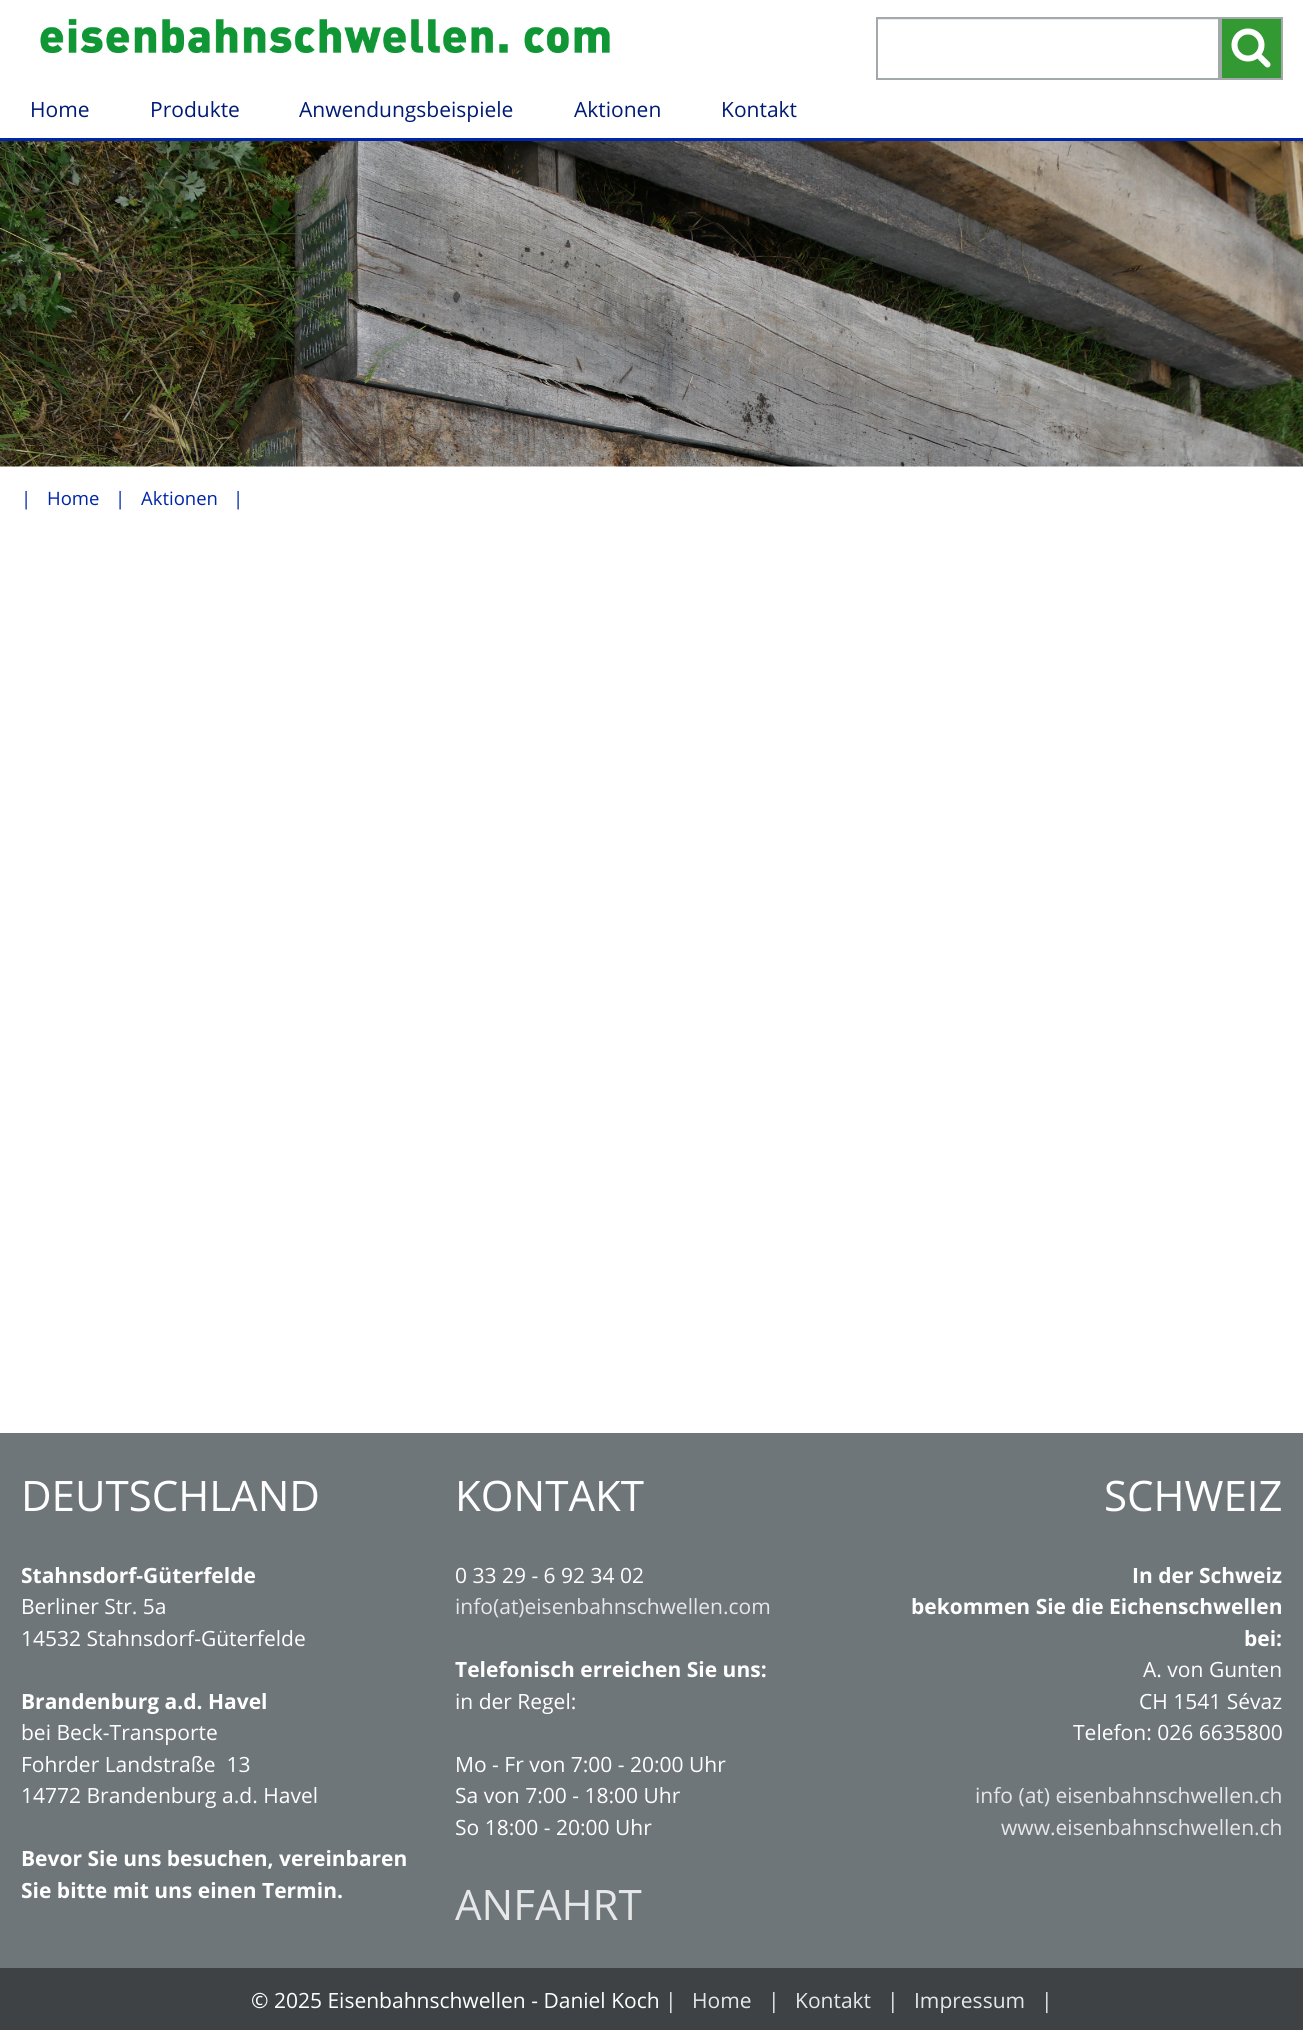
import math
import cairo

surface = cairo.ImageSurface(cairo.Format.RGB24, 1303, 2030)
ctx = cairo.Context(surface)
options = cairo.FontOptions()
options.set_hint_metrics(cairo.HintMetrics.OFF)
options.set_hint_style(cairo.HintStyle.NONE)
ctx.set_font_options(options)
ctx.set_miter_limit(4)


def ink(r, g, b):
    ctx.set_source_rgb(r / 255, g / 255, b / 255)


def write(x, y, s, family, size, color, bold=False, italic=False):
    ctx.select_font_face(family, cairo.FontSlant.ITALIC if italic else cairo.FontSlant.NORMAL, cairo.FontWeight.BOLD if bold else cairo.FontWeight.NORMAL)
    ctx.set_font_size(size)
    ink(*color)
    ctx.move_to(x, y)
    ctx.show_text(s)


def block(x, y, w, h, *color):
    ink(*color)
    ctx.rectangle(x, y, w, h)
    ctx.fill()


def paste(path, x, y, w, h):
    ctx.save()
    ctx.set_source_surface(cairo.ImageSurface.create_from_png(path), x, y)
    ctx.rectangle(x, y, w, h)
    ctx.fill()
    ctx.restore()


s1 = dict(family="Open Sans", size=21, color=(0, 27, 117))
s2 = dict(family="Open Sans", size=18.5, color=(0, 38, 168))
s3 = dict(family="Open Sans", size=42, color=(255, 255, 255))
s4 = dict(family="Open Sans", size=21, color=(255, 255, 255), bold=True)
s5 = dict(family="Open Sans", size=21, color=(255, 255, 255))
s6 = dict(family="Open Sans", size=21, color=(230, 231, 232))
s7 = dict(family="Open Sans", size=42, color=(230, 231, 232))

ink(255, 255, 255)
ctx.paint()
paste("pic1.png", 40, 18, 570, 35)
block(878, 19, 340, 1, 236, 236, 236)
ctx.rectangle(877, 18, 342, 61)
ink(163, 168, 171)
ctx.stroke()
ink(51, 153, 51)
ctx.rectangle(1221, 18, 61, 61)
ctx.fill_preserve()
ink(163, 168, 171)
ctx.stroke()
paste("pic2.png", 1231, 28, 40, 40)
block(0, 138, 1303, 3, 0, 38, 168)
write(30, 117, "Home", **s1)
write(150, 117, "Produkte", **s1)
write(299, 117, "Anwendungsbeispiele", **s1)
write(574, 117, "Aktionen", **s1)
write(721, 117, "Kontakt", **s1)
paste("pic3.png", 0, 141, 1303, 326)
write(21, 505, "|", **s2)
write(47, 505, "Home", **s2)
write(115, 505, "|", **s2)
write(141, 505, "Aktionen", **s2)
write(233, 505, "|", **s2)
block(0, 1433, 1303, 535, 111, 118, 121)
write(21, 1511, "DEUTSCHLAND", **s3)
write(21, 1583, "Stahnsdorf-Güterfelde", **s4)
write(21, 1614, "Berliner Str. 5a", **s5)
write(21, 1646, "14532 Stahnsdorf-Güterfelde", **s5)
write(21, 1709, "Brandenburg a.d. Havel", **s4)
write(21, 1740, "bei Beck-Transporte", **s5)
write(21, 1772, "Fohrder Landstraße  13", **s5)
write(21, 1803, "14772 Brandenburg a.d. Havel", **s5)
write(21, 1866, "Bevor Sie uns besuchen, vereinbaren", **s4)
write(21, 1898, "Sie bitte mit uns einen Termin.", **s4)
write(455, 1511, "KONTAKT", **s3)
write(455, 1583, "0 33 29 - 6 92 34 02", **s5)
write(455, 1614, "info(at)eisenbahnschwellen.com", **s6)
write(455, 1677, "Telefonisch erreichen Sie uns:", **s4)
write(455, 1709, "in der Regel:", **s5)
write(455, 1772, "Mo - Fr von 7:00 - 20:00 Uhr", **s5)
write(455, 1803, "Sa von 7:00 - 18:00 Uhr", **s5)
write(455, 1835, "So 18:00 - 20:00 Uhr", **s5)
write(455, 1920, "ANFAHRT", **s7)
write(1104, 1511, "SCHWEIZ", **s3)
write(1132, 1583, "In der Schweiz", **s4)
write(911, 1614, "bekommen Sie die Eichenschwellen", **s4)
write(1244, 1646, "bei:", **s4)
write(1143, 1677, "A. von Gunten", **s5)
write(1139, 1709, "CH 1541 Sévaz", **s5)
write(1073, 1740, "Telefon: 026 6635800", **s5)
write(975, 1803, "info (at) eisenbahnschwellen.ch", **s6)
write(1001, 1835, "www.eisenbahnschwellen.ch", **s6)
block(0, 1968, 1303, 62, 62, 66, 68)
write(251, 2008, "© 2025 Eisenbahnschwellen - Daniel Koch", **s5)
write(665, 2008, "|", **s6)
write(692, 2008, "Home", **s6)
write(768, 2008, "|", **s6)
write(795, 2008, "Kontakt", **s6)
write(887, 2008, "|", **s6)
write(914, 2008, "Impressum", **s6)
write(1041, 2008, "|", **s6)
surface.write_to_png("screenshot.png")
